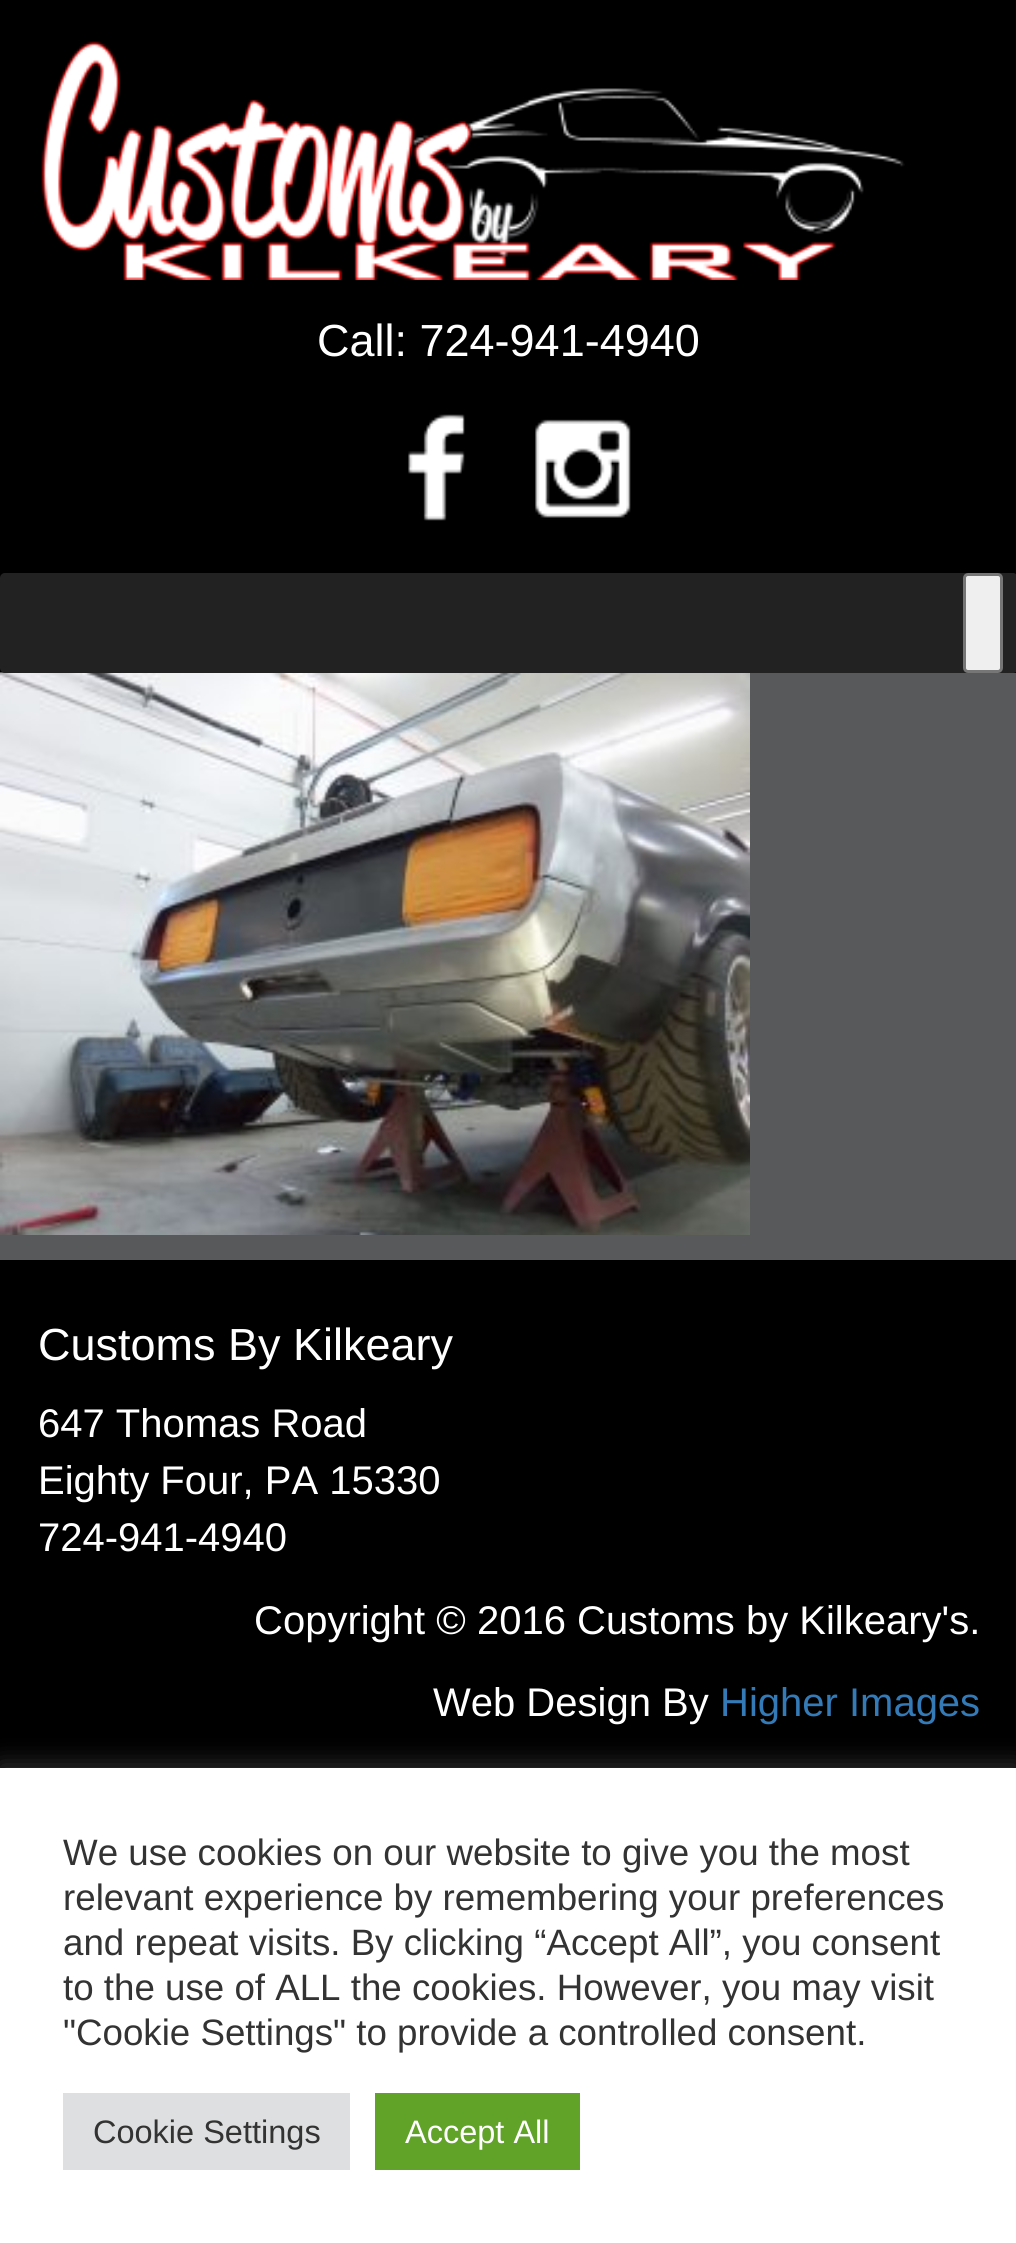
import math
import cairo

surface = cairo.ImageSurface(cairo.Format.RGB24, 1016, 2243)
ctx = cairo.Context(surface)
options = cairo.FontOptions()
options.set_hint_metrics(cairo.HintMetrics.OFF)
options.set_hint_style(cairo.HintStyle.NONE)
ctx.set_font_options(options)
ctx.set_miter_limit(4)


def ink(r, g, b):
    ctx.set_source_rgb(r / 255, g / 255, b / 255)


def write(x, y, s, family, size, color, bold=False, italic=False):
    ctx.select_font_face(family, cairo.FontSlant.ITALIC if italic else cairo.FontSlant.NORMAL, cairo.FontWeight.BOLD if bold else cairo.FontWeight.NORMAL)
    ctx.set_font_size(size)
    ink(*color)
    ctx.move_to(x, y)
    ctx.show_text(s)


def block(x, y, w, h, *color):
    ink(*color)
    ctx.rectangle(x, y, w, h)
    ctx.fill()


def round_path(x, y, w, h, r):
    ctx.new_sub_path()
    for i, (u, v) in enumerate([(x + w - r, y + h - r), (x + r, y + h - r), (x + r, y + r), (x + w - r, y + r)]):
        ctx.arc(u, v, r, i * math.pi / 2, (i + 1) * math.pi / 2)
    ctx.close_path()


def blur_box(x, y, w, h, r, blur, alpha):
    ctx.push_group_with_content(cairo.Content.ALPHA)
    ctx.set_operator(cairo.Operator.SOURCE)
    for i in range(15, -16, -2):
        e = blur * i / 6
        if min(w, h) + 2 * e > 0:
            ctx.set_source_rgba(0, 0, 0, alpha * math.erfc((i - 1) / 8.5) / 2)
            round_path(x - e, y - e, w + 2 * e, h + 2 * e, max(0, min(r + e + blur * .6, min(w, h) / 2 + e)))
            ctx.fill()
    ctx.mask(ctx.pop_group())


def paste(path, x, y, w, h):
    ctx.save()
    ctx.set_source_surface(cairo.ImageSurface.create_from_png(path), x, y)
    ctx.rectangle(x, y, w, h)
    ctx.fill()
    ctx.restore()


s1 = dict(family="Liberation Sans", size=45, color=(255, 255, 255))
s2 = dict(family="Liberation Sans", size=40, color=(255, 255, 255))
s3 = dict(family="Liberation Sans", size=40, color=(51, 122, 183))
s4 = dict(family="Liberation Sans", size=36.7, color=(51, 51, 51))
s5 = dict(family="Liberation Sans", size=32.5, color=(51, 51, 51))
s6 = dict(family="Liberation Sans", size=32.5, color=(255, 255, 255))

ink(0, 0, 0)
ctx.paint()
paste("pic1.png", 41, 41, 864, 239)
write(317, 356, "Call: 724-941-4940", **s1)
paste("pic2.png", 408, 414, 57, 107)
paste("pic3.png", 535, 419, 96, 99)
block(0, 673, 1016, 587, 88, 89, 91)
paste("pic4.png", 0, 672, 750, 563)
ink(34, 34, 34)
round_path(0, 573, 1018, 100, 5)
ctx.fill()
ink(239, 239, 239)
round_path(964.5, 574.5, 37, 97, 3.5)
ctx.fill_preserve()
ink(118, 118, 118)
ctx.set_line_width(3)
ctx.stroke()
write(38, 1360, "Customs By Kilkeary", **s1)
write(38, 1437, "647 Thomas Road", **s2)
write(38, 1494, "Eighty Four, PA 15330", **s2)
write(38, 1551, "724-941-4940", **s2)
write(254, 1634, "Copyright © 2016 Customs by Kilkeary's.", **s2)
write(433, 1716, "Web Design By", **s2)
write(720, 1716, "Higher Images", **s3)
ink(172, 171, 171)
blur_box(0, 1765, 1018, 478, 0, 12.5, 0.3)
block(0, 1768, 1016, 475, 255, 255, 255)
write(63, 1865, "We use cookies on our website to give you the most", **s4)
write(63, 1910, "relevant experience by remembering your preferences", **s4)
write(63, 1955, "and repeat visits. By clicking “Accept All”, you consent", **s4)
write(63, 2000, "to the use of ALL the cookies. However, you may visit", **s4)
write(63, 2045, "\"Cookie Settings\" to provide a controlled consent.", **s4)
block(63, 2093, 287, 77, 222, 223, 224)
write(93, 2143, "Cookie Settings", **s5)
block(375, 2093, 205, 77, 97, 162, 41)
write(405, 2143, "Accept All", **s6)
surface.write_to_png("screenshot.png")
